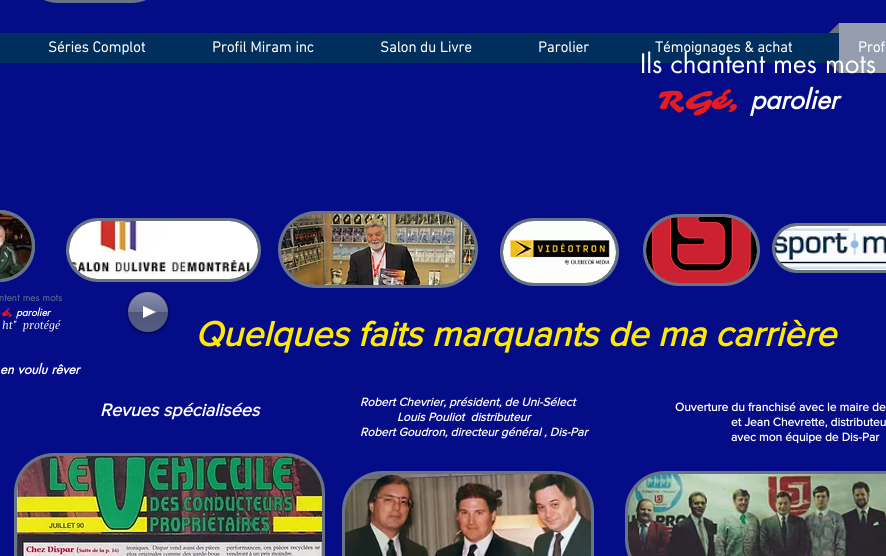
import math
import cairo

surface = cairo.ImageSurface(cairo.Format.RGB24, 886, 556)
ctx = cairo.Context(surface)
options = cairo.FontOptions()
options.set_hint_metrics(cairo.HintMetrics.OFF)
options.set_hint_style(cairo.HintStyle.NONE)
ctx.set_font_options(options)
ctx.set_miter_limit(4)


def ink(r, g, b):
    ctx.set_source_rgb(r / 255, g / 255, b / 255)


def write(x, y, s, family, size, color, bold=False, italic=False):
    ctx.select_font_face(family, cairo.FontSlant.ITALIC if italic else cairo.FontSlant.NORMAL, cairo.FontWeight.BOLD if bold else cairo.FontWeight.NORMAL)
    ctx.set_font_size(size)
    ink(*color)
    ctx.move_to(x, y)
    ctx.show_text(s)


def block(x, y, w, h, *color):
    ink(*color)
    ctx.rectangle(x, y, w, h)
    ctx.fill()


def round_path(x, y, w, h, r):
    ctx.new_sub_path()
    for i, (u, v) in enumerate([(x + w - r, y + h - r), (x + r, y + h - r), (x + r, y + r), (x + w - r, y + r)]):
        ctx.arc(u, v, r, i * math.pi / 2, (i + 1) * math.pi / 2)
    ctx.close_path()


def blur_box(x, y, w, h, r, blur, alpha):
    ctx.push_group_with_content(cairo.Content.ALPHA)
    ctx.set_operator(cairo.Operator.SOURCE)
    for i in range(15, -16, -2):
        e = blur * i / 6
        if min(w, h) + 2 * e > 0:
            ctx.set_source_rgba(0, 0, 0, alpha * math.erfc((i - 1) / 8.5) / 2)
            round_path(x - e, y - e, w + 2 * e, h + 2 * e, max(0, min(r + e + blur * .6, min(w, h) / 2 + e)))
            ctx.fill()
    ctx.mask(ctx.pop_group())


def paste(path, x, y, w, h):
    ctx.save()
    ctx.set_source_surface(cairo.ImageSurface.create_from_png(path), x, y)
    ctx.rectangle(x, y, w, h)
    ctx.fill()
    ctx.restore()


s1 = dict(family="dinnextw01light", size=15, color=(255, 255, 255), bold=True)
s2 = dict(family="futura", size=26, color=(255, 255, 255))
s3 = dict(family="Sarina", size=26, color=(226, 28, 33), bold=True)
s4 = dict(family="futura", size=26, color=(255, 255, 255), bold=True, italic=True)
s5 = dict(family="futura", size=10, color=(105, 115, 134))
s6 = dict(family="Sarina", size=10, color=(226, 28, 33), bold=True)
s7 = dict(family="futura", size=10, color=(255, 255, 255), bold=True, italic=True)
s8 = dict(family="Noticia Text", size=11, color=(255, 255, 255), italic=True)
s9 = dict(family="futura", size=13, color=(255, 255, 255), bold=True, italic=True)
s10 = dict(family="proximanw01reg", size=36, color=(255, 233, 0), bold=True, italic=True)
s11 = dict(family="proximanw01reg", size=18, color=(255, 255, 255), bold=True, italic=True)
s12 = dict(family="proximanw01reg", size=12, color=(255, 255, 255), bold=True, italic=True)
s13 = dict(family="proximanw01reg", size=12, color=(255, 255, 255), bold=True)

ink(5, 12, 135)
ctx.paint()
round_path(20.5, -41.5, 149, 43, 38.5)
ink(105, 115, 134)
ctx.set_line_width(3)
ctx.stroke()
block(0, 33, 839, 30, 0, 46, 93)
write(48, 52, "Séries Complot", **s1)
write(212, 52, "Profil Miram inc", **s1)
write(380, 52, "Salon du Livre", **s1)
write(538, 52, "Parolier", **s1)
write(655, 52, "Témoignages & achat", **s1)
ink(0, 0, 0)
blur_box(841, 23, 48, 50, 0, 1, 0.2)
ink(104, 111, 122)
ctx.new_path()
ctx.move_to(839, 33)
ctx.line_to(829, 33)
ctx.line_to(839, 23)
ctx.close_path()
ctx.move_to(829, 63)
ctx.line_to(839, 63)
ctx.line_to(839, 73)
ctx.close_path()
ctx.fill()
block(839, 23, 47, 50, 149, 158, 174)
write(858, 52, "Prof", **s1)
write(640, 73, "Ils chantent mes mots", **s2)
write(658, 109, "RGé,", **s3)
write(750, 109, "parolier", **s4)
ink(105, 115, 134)
ctx.new_path()
ctx.move_to(0, 210)
ctx.line_to(-1, 210)
ctx.curve_to(19, 210, 35, 226, 35, 246)
ctx.curve_to(35, 266, 19, 282, -1, 282)
ctx.line_to(0, 282)
ctx.close_path()
ctx.fill()
round_path(-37.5, 211.5, 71, 69, 34.5)
ctx.stroke()
paste("pic1.png", 0, 213, 32, 66)
round_path(67.5, 219.5, 192, 61, 30.5)
ctx.fill_preserve()
ctx.stroke()
paste("pic2.png", 69, 221, 189, 58)
round_path(279.5, 212.5, 197, 74, 37)
ctx.fill_preserve()
ctx.stroke()
paste("pic3.png", 281, 214, 194, 71)
round_path(501.5, 219.5, 116, 65, 32.5)
ctx.fill_preserve()
ctx.stroke()
paste("pic4.png", 503, 221, 113, 62)
round_path(644.5, 215.5, 114, 69, 34.5)
ctx.fill_preserve()
ctx.stroke()
paste("pic5.png", 646, 217, 111, 66)
round_path(773.5, 224.5, 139, 47, 23.5)
ctx.fill_preserve()
ctx.stroke()
paste("pic6.png", 775, 226, 111, 44)
write(-1, 301, "ntent mes mots", **s5)
write(3, 316, "é,", **s6)
write(16, 316, "parolier", **s7)
ctx.save()
ctx.set_fill_rule(cairo.FillRule.EVEN_ODD)
ctx.new_path()
ctx.move_to(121, 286)
ctx.line_to(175, 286)
ctx.line_to(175, 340)
ctx.line_to(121, 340)
ctx.close_path()
ctx.move_to(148, 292)
ctx.curve_to(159, 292, 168, 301, 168, 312)
ctx.curve_to(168, 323, 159, 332, 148, 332)
ctx.curve_to(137, 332, 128, 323, 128, 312)
ctx.curve_to(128, 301, 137, 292, 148, 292)
ctx.close_path()
ctx.clip()
ink(0, 0, 0)
blur_box(128, 293, 40, 40, 20, 2, 0.6)
ctx.restore()
ctx.set_source_rgba(0.412, 0.451, 0.525, 0.8)
ctx.arc(148, 312, 20, 0, 2 * math.pi)
ctx.fill()
paste("pic7.png", 128, 292, 40, 38)
ink(255, 255, 255)
ctx.new_path()
ctx.move_to(143, 318)
ctx.line_to(143, 306)
ctx.line_to(156, 312)
ctx.close_path()
ctx.fill()
write(2, 329, "ht\"  protégé", **s8)
write(0, 374, "en voulu rêver", **s9)
write(195, 346, "Quelques faits marquants de ma carrière", **s10)
write(100, 416, "Revues spécialisées", **s11)
write(360, 406, "Robert Chevrier, président, de Uni-Sélect", **s12)
write(397, 421, "Louis Pouliot  distributeur", **s12)
write(360, 436, "Robert Goudron, directeur général , Dis-Par", **s12)
write(675, 411, "Ouverture du franchisé avec le maire de", **s13)
write(731, 426, "et Jean Chevrette, distributeu", **s13)
write(731, 441, "avec mon équipe de Dis-Par", **s13)
ink(105, 115, 134)
round_path(15.5, 454.5, 308, 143, 38.5)
ctx.fill_preserve()
ctx.stroke()
paste("pic8.png", 17, 456, 305, 100)
round_path(343.5, 472.5, 249, 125, 38.5)
ctx.fill_preserve()
ctx.stroke()
paste("pic9.png", 345, 474, 246, 82)
round_path(626.5, 472.5, 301, 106, 38.5)
ctx.fill_preserve()
ctx.stroke()
paste("pic10.png", 628, 474, 258, 82)
surface.write_to_png("screenshot.png")
